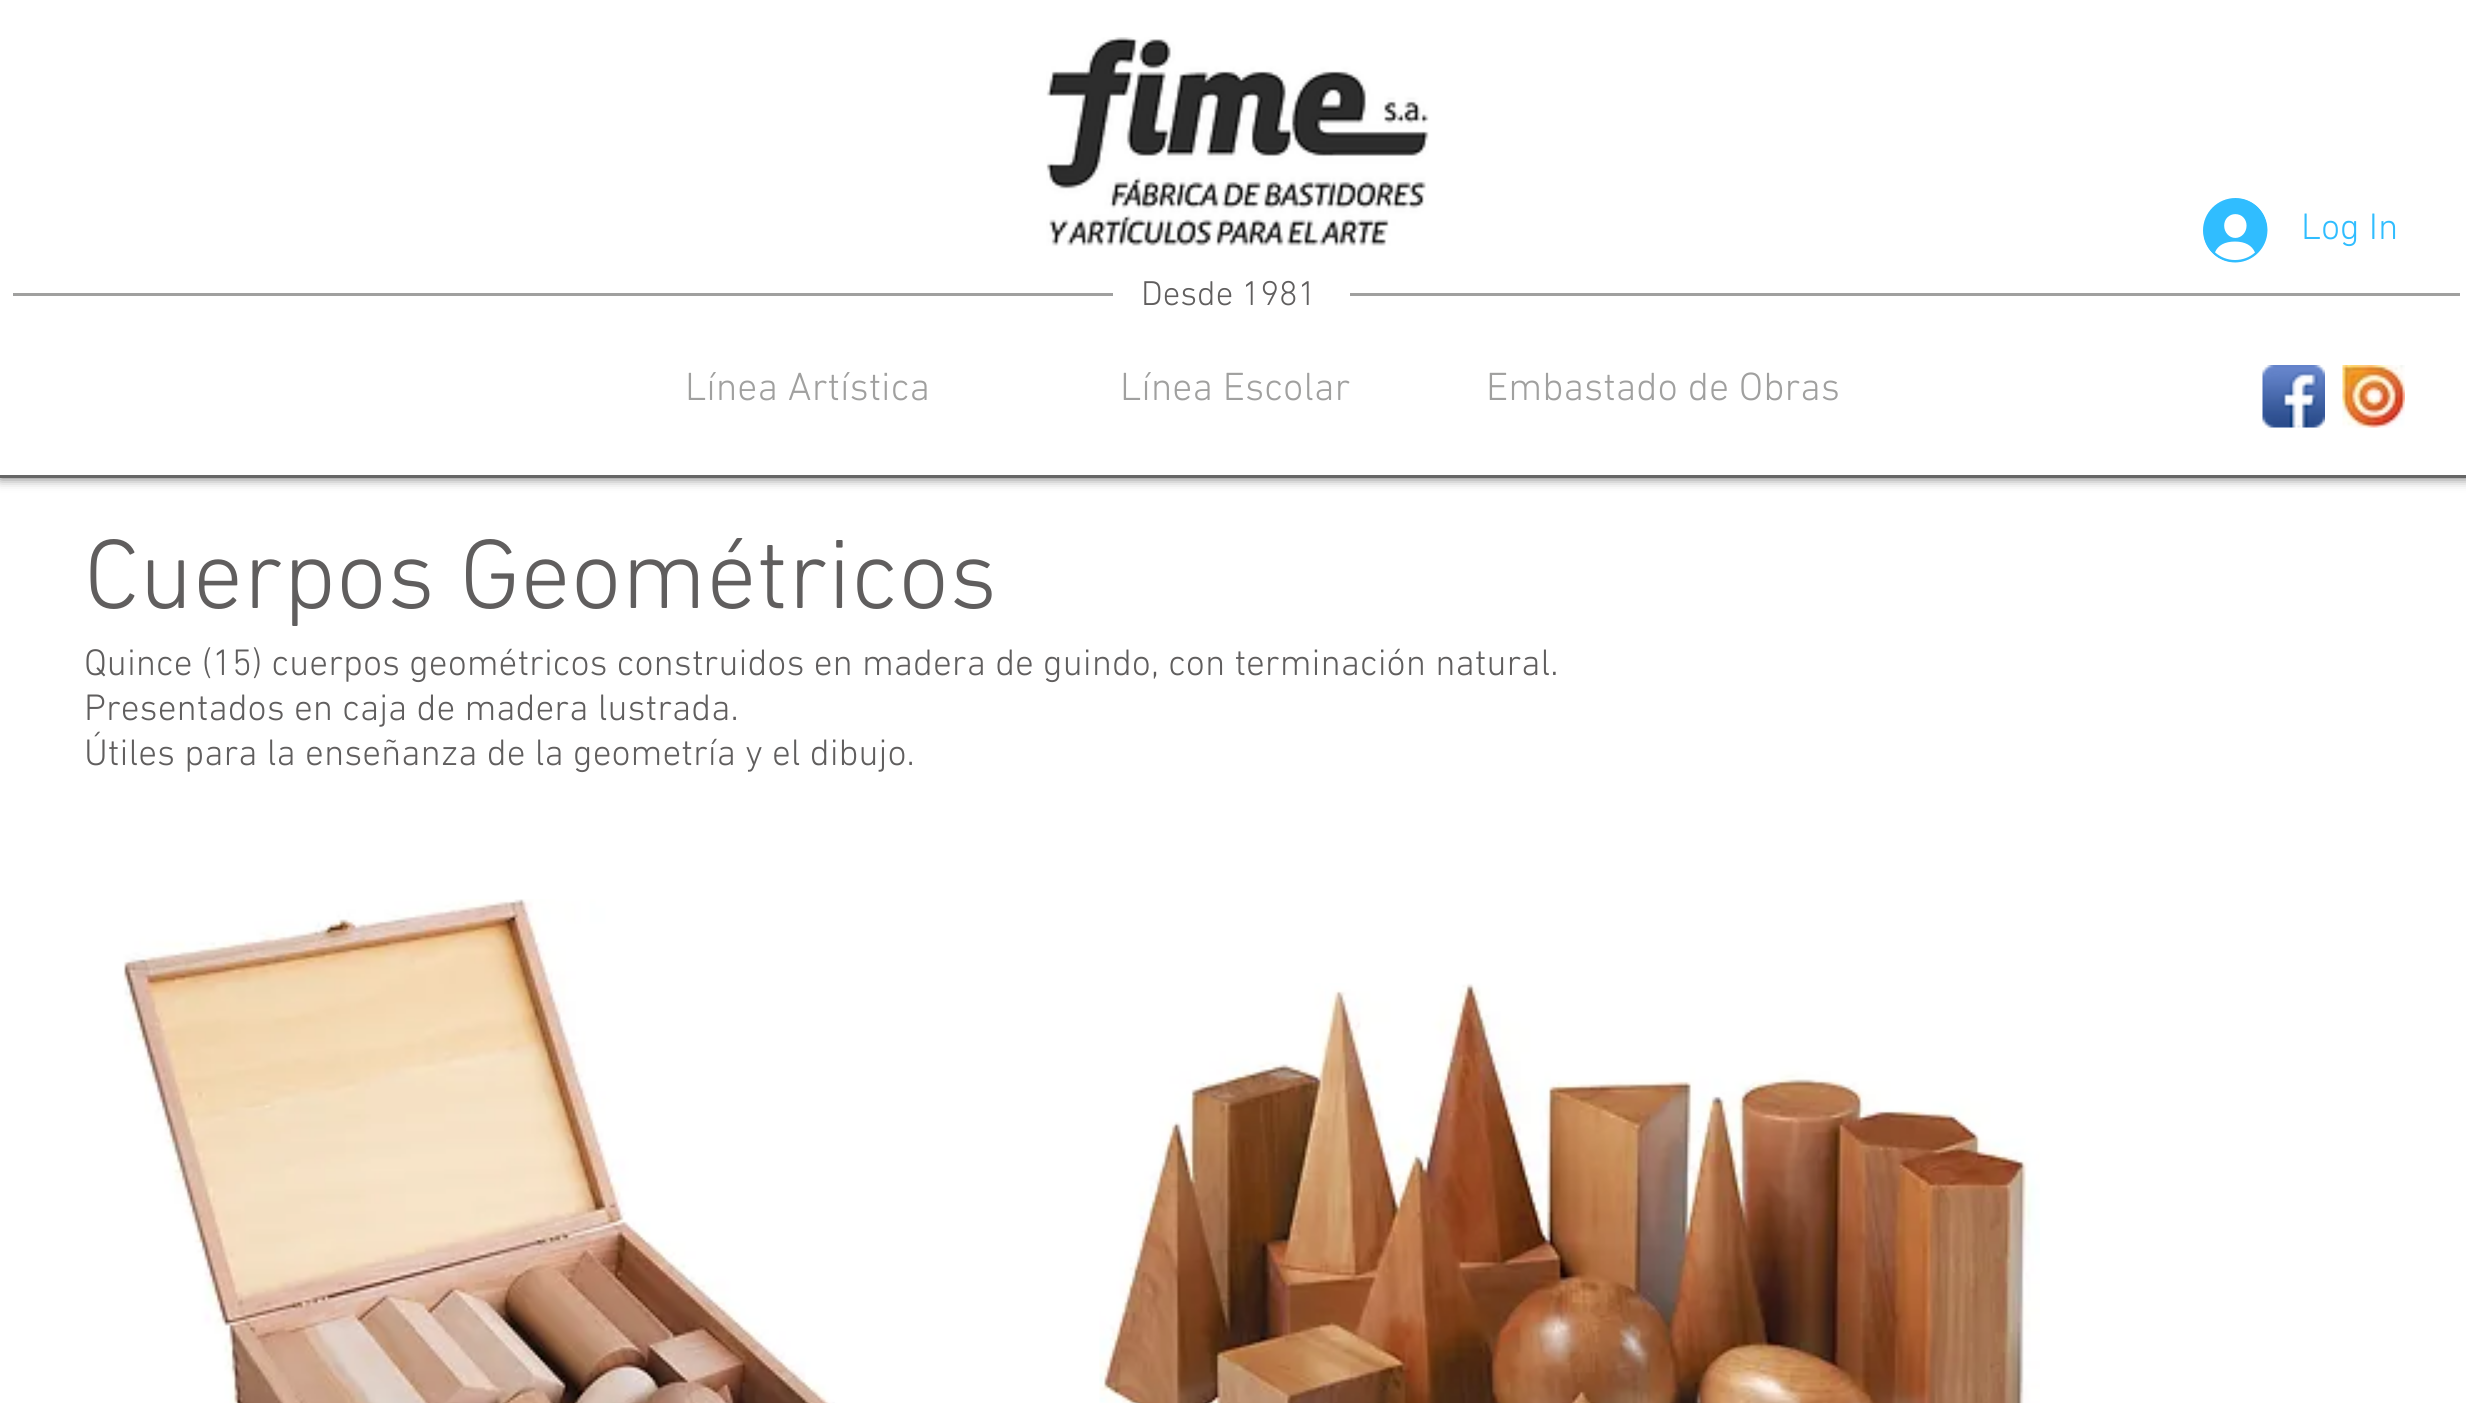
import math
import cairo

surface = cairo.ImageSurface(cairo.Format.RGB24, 2466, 1403)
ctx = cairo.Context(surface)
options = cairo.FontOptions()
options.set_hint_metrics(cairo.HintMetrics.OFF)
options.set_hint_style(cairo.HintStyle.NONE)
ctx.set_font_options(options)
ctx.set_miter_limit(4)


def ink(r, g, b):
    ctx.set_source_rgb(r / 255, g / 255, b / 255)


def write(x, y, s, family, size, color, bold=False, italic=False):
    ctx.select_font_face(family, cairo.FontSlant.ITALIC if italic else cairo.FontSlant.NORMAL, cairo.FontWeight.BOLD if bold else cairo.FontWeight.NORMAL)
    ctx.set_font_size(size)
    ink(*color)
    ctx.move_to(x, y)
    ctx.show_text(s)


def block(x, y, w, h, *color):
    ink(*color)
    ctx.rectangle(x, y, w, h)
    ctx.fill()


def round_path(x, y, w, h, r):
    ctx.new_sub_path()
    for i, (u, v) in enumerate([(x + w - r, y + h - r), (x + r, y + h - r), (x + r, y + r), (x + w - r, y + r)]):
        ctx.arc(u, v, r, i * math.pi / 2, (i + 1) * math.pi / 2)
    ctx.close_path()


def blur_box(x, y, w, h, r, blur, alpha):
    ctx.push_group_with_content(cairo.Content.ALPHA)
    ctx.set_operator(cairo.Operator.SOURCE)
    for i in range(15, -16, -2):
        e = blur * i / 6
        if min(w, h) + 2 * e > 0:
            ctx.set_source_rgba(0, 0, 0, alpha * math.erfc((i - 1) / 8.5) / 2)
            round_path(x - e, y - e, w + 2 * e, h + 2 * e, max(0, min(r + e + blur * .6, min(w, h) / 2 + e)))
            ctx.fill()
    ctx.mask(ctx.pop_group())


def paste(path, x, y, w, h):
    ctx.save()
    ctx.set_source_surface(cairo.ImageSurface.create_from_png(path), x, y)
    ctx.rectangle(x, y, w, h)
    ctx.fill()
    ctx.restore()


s1 = dict(family="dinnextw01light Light", size=37.5, color=(48, 189, 255))
s2 = dict(family="dinnextw01light Light", size=35, color=(96, 94, 94))
s3 = dict(family="dinnextw01light Light", size=40, color=(160, 160, 159))
s4 = dict(family="dinnextw01light Light", size=100, color=(96, 94, 94))
s5 = dict(family="dinnextw01light Light", size=37.5, color=(96, 94, 94))

ink(255, 255, 255)
ctx.paint()
ink(0, 0, 0)
blur_box(0, 0, 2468, 478, 0, 6, 0.6)
block(0, 0, 2466, 475, 255, 255, 255)
block(0, 475, 2466, 3, 102, 102, 102)
paste("pic1.png", 1046, 37, 383, 209)
paste("pic2.png", 2203, 198, 65, 65)
write(2301, 239, "Log In", **s1)
block(13, 293, 1100, 3, 160, 160, 159)
write(1141, 305, "Desde 1981", **s2)
block(1350, 293, 1110, 3, 160, 160, 159)
write(685, 400, "Línea Artística", **s3)
write(1120, 400, "Línea Escolar", **s3)
write(1486, 400, "Embastado de Obras", **s3)
paste("pic3.png", 2262, 365, 63, 63)
paste("pic4.png", 2342, 365, 63, 63)
write(84, 608, "Cuerpos Geométricos", **s4)
write(84, 675, "Quince (15) cuerpos geométricos construidos en madera de guindo, con terminación natural.", **s5)
write(84, 720, "Presentados en caja de madera lustrada.", **s5)
write(84, 765, "Útiles para la enseñanza de la geometría y el dibujo.", **s5)
paste("pic5.png", 123, 899, 712, 504)
paste("pic6.png", 1099, 983, 941, 420)
surface.write_to_png("screenshot.png")
